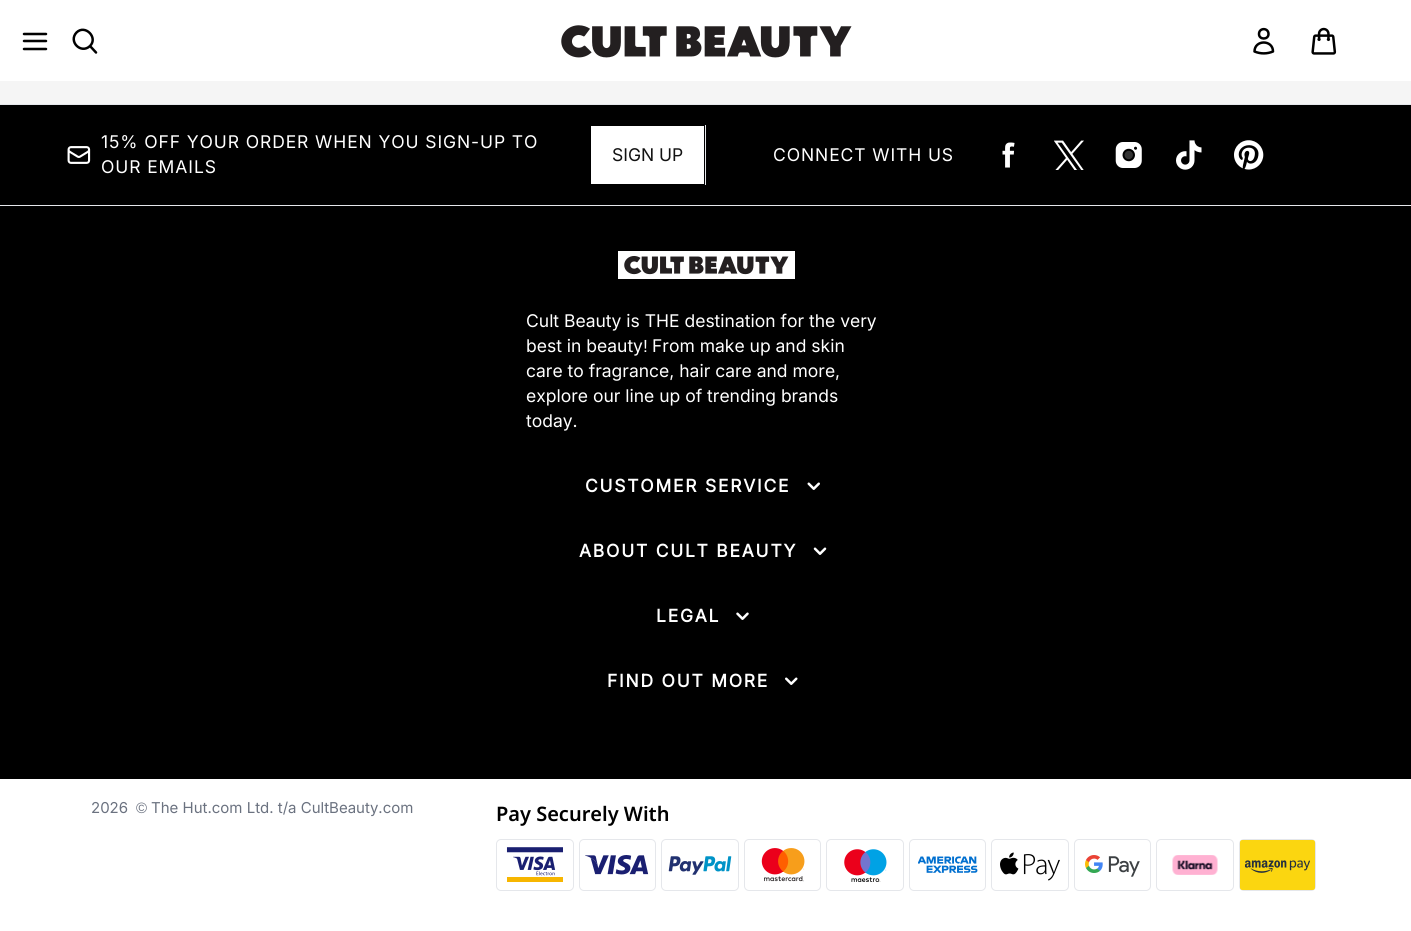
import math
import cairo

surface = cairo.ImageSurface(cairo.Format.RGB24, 1411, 931)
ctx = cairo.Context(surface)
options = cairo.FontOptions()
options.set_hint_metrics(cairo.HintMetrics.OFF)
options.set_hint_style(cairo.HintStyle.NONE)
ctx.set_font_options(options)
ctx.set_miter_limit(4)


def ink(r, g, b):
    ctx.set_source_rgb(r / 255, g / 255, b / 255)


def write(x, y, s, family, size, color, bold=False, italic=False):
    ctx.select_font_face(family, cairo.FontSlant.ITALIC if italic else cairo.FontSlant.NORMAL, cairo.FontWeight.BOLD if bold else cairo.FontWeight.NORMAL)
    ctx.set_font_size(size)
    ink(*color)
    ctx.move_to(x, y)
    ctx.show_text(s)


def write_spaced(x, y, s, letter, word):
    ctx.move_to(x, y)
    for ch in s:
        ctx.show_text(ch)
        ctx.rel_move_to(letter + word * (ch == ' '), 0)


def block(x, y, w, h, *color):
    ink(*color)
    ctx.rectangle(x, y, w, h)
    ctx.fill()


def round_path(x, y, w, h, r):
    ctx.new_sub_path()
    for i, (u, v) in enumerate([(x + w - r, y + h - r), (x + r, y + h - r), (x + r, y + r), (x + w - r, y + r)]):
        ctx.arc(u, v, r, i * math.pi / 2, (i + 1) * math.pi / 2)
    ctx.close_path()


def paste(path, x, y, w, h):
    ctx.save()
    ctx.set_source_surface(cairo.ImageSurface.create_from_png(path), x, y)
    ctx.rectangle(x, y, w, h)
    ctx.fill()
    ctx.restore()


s1 = dict(family="Inter", size=17.5, color=(18, 18, 18))
s2 = dict(family="Inter", size=17.5, color=(255, 255, 255))
s3 = dict(family="Liberation Sans", size=17.5, color=(255, 255, 255))
s4 = dict(family="Inter", size=15, color=(107, 114, 128))
s5 = dict(family="Liberation Sans", size=15, color=(107, 114, 128))
s6 = dict(family="Noto Sans SemiBold", size=20, color=(0, 0, 0))

ink(255, 255, 255)
ctx.paint()
ctx.new_path()
ctx.move_to(24, 41)
ctx.line_to(46, 41)
ctx.move_to(24, 34)
ctx.line_to(46, 34)
ctx.move_to(24, 49)
ctx.line_to(46, 49)
ink(0, 0, 0)
ctx.set_line_width(2.5)
ctx.set_line_cap(cairo.LineCap.ROUND)
ctx.set_line_join(cairo.LineJoin.ROUND)
ctx.stroke()
ctx.new_path()
ctx.move_to(96, 52.5)
ctx.line_to(90, 46)
ctx.move_to(90, 46)
ctx.curve_to(98.5, 37.5, 85, 24, 76.5, 32.5)
ctx.curve_to(68, 41.5, 81, 54.5, 90, 46)
ctx.close_path()
ctx.stroke()
paste("pic1.png", 561, 25, 291, 33)
ctx.new_path()
ctx.move_to(1268.5, 34)
ctx.curve_to(1268.5, 40, 1259, 40, 1259, 34)
ctx.curve_to(1259, 27.5, 1268.5, 27.5, 1268.5, 34)
ctx.close_path()
ctx.move_to(1254.5, 51.5)
ctx.curve_to(1254.5, 39.5, 1273, 39.5, 1273, 51.5)
ctx.curve_to(1267, 54, 1260.5, 54, 1254.5, 51.5)
ctx.close_path()
ctx.stroke()
paste("pic2.png", 1311, 27, 26, 28)
block(0, 81, 1411, 23, 245, 245, 245)
block(0, 105, 1411, 100, 0, 0, 0)
block(0, 104, 1411, 1, 229, 231, 235)
block(0, 205, 1411, 1, 229, 231, 235)
block(705, 125, 1, 60, 229, 231, 235)
paste("pic3.png", 67, 146, 24, 18)
ctx.select_font_face("Inter")
ctx.set_font_size(17.5)
ink(255, 255, 255)
write_spaced(101, 148, "15% OFF YOUR ORDER WHEN YOU SIGN-UP TO", 0.9, 0)
write_spaced(101, 173, "OUR EMAILS", 0.9, 0)
block(591, 126, 113, 58, 255, 255, 255)
write(612, 161, "SIGN UP", **s1)
ink(255, 255, 255)
write_spaced(773, 161, "CONNECT WITH US", 0.9, 0)
paste("pic4.png", 1002, 142, 13, 26)
paste("pic5.png", 1054, 140, 30, 30)
paste("pic6.png", 1115, 142, 27, 26)
paste("pic7.png", 1176, 140, 26, 30)
paste("pic8.png", 1234, 140, 30, 30)
block(0, 206, 1411, 573, 0, 0, 0)
paste("pic9.png", 618, 251, 177, 28)
write(526, 327, "Cult Beauty is THE destination for the very", **s2)
write(526, 352, "best in beauty", **s2)
write(643, 352, "!", **s3)
write(652, 352, "From make up and skin", **s2)
write(526, 377, "care to fragrance, hair care and more,", **s2)
write(526, 402, "explore our line up of trending brands", **s2)
write(526, 427, "today.", **s2)
ctx.select_font_face("Inter", cairo.FontSlant.NORMAL, cairo.FontWeight.BOLD)
write_spaced(585, 492, "CUSTOMER SERVICE", 1.75, 0)
paste("pic10.png", 807, 482, 13, 8)
write_spaced(579, 557, "ABOUT CULT BEAUTY", 1.75, 0)
paste("pic11.png", 813, 547, 14, 8)
write_spaced(656, 622, "LEGAL", 1.75, 0)
paste("pic12.png", 736, 612, 13, 8)
write_spaced(607, 687, "FIND OUT MORE", 1.75, 0)
paste("pic13.png", 785, 677, 13, 8)
write(91, 813, "2026", **s4)
write(136, 813, "©", **s5)
write(151, 813, "The Hut.com Ltd. t/a CultBeauty.com", **s4)
write(496, 821, "Pay Securely With", **s6)
round_path(496.5, 839.5, 77, 51, 4.5)
ink(229, 231, 235)
ctx.set_line_width(1)
ctx.set_line_cap(cairo.LineCap.BUTT)
ctx.set_line_join(cairo.LineJoin.MITER)
ctx.stroke()
paste("pic14.png", 506, 847, 57, 35)
round_path(579.5, 839.5, 76, 51, 4.5)
ctx.stroke()
paste("pic15.png", 585, 855, 64, 20)
round_path(661.5, 839.5, 77, 51, 4.5)
ctx.stroke()
paste("pic16.png", 668, 856, 64, 19)
round_path(744.5, 839.5, 76, 51, 4.5)
ctx.stroke()
paste("pic17.png", 761, 848, 44, 34)
round_path(826.5, 839.5, 77, 51, 4.5)
ctx.stroke()
paste("pic18.png", 844, 849, 43, 33)
round_path(909.5, 839.5, 76, 51, 4.5)
ctx.stroke()
paste("pic19.png", 918, 856, 60, 17)
round_path(991.5, 839.5, 77, 51, 4.5)
ctx.stroke()
paste("pic20.png", 1000, 852, 60, 29)
round_path(1074.5, 839.5, 76, 51, 4.5)
ctx.stroke()
paste("pic21.png", 1085, 855, 55, 22)
round_path(1156.5, 839.5, 77, 51, 4.5)
ctx.stroke()
paste("pic22.png", 1172, 855, 46, 20)
round_path(1239.5, 839.5, 76, 51, 4.5)
ctx.stroke()
paste("pic23.png", 1240, 840, 75, 50)
surface.write_to_png("screenshot.png")
